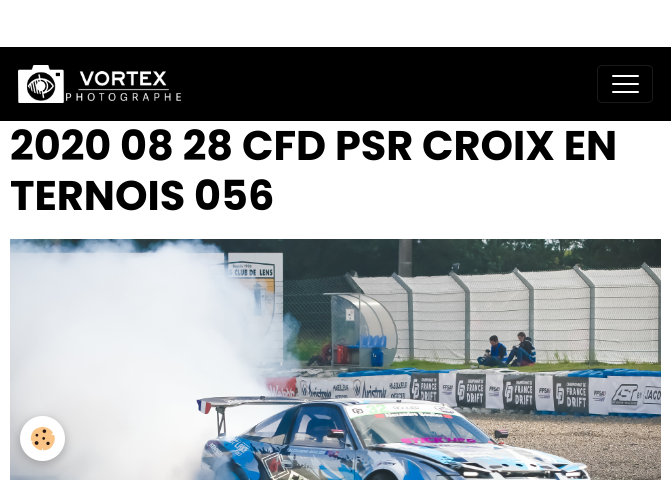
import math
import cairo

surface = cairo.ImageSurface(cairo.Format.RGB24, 671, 480)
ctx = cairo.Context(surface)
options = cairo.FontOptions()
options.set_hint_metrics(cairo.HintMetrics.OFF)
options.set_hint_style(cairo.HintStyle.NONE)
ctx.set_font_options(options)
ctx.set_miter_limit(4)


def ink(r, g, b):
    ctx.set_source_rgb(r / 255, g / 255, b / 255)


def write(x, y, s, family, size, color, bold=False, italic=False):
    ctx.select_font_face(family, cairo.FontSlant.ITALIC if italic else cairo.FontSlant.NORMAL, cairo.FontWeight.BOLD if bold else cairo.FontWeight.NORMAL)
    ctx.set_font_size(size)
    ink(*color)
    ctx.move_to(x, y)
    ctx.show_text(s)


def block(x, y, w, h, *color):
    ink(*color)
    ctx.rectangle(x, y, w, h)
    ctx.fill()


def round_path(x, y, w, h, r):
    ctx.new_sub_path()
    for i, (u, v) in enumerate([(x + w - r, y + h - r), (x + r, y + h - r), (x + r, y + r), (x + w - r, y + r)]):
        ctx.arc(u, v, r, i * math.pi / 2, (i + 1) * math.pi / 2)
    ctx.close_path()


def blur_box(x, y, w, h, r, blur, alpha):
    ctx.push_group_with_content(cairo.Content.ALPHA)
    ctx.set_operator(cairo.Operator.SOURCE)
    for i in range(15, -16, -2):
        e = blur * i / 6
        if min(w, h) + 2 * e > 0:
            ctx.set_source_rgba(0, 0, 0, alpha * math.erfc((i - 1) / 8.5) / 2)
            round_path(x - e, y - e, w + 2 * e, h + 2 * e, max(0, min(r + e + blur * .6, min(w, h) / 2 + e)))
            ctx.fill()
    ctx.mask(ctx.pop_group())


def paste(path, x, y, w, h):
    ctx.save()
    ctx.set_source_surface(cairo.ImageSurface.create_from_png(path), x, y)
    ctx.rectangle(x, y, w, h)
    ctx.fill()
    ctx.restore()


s1 = dict(family="Poppins", size=41.4, color=(0, 0, 0), bold=True)

ink(255, 255, 255)
ctx.paint()
block(0, 47, 671, 74, 0, 0, 0)
paste("pic1.png", 18, 65, 163, 38)
round_path(597.5, 65.5, 55, 37, 4.5)
ink(26, 26, 26)
ctx.set_line_width(1)
ctx.stroke()
ink(255, 255, 255)
round_path(612, 75, 27, 2, 1)
ctx.fill()
round_path(612, 83, 27, 2, 1)
ctx.fill()
round_path(612, 91, 27, 2, 1)
ctx.fill()
write(10, 160, "2020 08 28 CFD PSR CROIX EN", **s1)
write(10, 210, "TERNOIS 056", **s1)
paste("pic2.png", 10, 239, 651, 241)
ink(0, 0, 0)
blur_box(20, 419, 45, 45, 22.5, 5, 0.24)
ink(255, 255, 255)
ctx.arc(42.5, 438.5, 22.5, 0, 2 * math.pi)
ctx.fill()
paste("pic3.png", 30, 426, 25, 25)
surface.write_to_png("screenshot.png")
